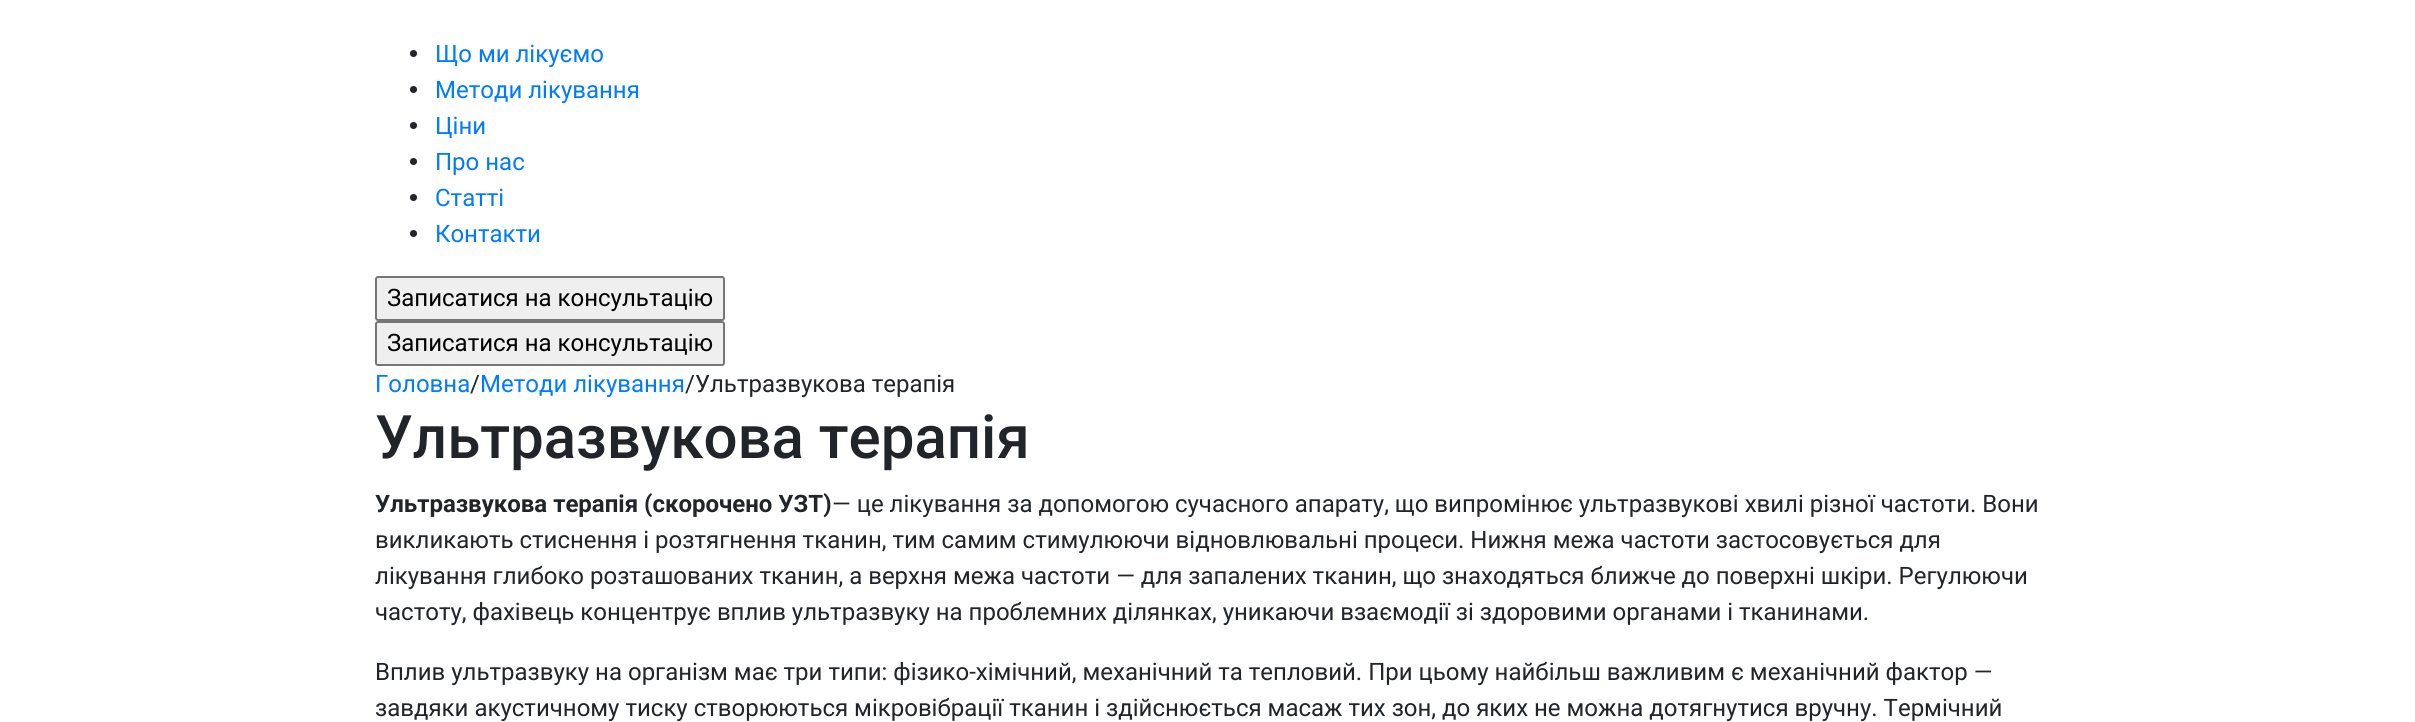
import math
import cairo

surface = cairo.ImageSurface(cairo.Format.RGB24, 2415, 722)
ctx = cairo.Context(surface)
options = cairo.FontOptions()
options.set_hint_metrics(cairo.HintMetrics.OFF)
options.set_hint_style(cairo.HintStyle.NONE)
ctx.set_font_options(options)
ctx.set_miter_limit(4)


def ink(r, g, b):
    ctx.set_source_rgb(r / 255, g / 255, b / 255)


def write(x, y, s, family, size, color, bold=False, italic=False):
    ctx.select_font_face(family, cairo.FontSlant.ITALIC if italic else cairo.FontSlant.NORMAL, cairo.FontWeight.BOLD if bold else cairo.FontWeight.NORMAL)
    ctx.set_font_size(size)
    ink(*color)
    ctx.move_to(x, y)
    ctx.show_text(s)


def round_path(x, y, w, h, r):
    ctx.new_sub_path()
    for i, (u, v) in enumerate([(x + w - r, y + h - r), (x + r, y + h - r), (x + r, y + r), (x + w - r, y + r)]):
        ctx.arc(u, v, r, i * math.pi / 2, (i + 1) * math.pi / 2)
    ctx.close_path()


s1 = dict(family="Roboto", size=24, color=(0, 123, 255))
s2 = dict(family="Roboto", size=24, color=(0, 0, 0))
s3 = dict(family="Roboto", size=24, color=(33, 37, 41))
s4 = dict(family="Roboto Medium", size=60, color=(33, 37, 41))
s5 = dict(family="Roboto", size=24, color=(33, 37, 41), bold=True)

ink(255, 255, 255)
ctx.paint()
ink(33, 37, 41)
ctx.arc(413.5, 53.5, 3.5, 0, 2 * math.pi)
ctx.fill()
write(435, 62, "Що ми лікуємо", **s1)
ink(33, 37, 41)
ctx.new_path()
ctx.arc(413.5, 89.5, 3.5, 0, 2 * math.pi)
ctx.fill()
write(435, 98, "Методи лікування", **s1)
ink(33, 37, 41)
ctx.new_path()
ctx.arc(413.5, 125.5, 3.5, 0, 2 * math.pi)
ctx.fill()
write(435, 134, "Ціни", **s1)
ink(33, 37, 41)
ctx.new_path()
ctx.arc(413.5, 161.5, 3.5, 0, 2 * math.pi)
ctx.fill()
write(435, 170, "Про нас", **s1)
ink(33, 37, 41)
ctx.new_path()
ctx.arc(413.5, 197.5, 3.5, 0, 2 * math.pi)
ctx.fill()
write(435, 206, "Статті", **s1)
ink(33, 37, 41)
ctx.new_path()
ctx.arc(413.5, 233.5, 3.5, 0, 2 * math.pi)
ctx.fill()
write(435, 242, "Контакти", **s1)
ink(239, 239, 239)
round_path(376, 277, 348, 43, 2)
ctx.fill_preserve()
ink(118, 118, 118)
ctx.stroke()
write(387, 306, "Записатися на консультацію", **s2)
ink(239, 239, 239)
round_path(376, 322, 348, 43, 2)
ctx.fill_preserve()
ink(118, 118, 118)
ctx.stroke()
write(387, 351, "Записатися на консультацію", **s2)
write(375, 392, "Головна", **s1)
write(470, 392, "/", **s3)
write(480, 392, "Методи лікування", **s1)
write(685, 392, "/Ультразвукова терапія", **s3)
write(375, 458, "Ультразвукова терапія", **s4)
write(375, 512, "Ультразвукова терапія (скорочено УЗТ)", **s5)
write(832, 512, "— це лікування за допомогою сучасного апарату, що випромінює ультразвукові хвилі різної частоти. Вони", **s3)
write(375, 548, "викликають стиснення і розтягнення тканин, тим самим стимулюючи відновлювальні процеси. Нижня межа частоти застосовується для", **s3)
write(375, 584, "лікування глибоко розташованих тканин, а верхня межа частоти — для запалених тканин, що знаходяться ближче до поверхні шкіри. Регулюючи", **s3)
write(375, 620, "частоту, фахівець концентрує вплив ультразвуку на проблемних ділянках, уникаючи взаємодії зі здоровими органами і тканинами.", **s3)
write(375, 680, "Вплив ультразвуку на організм має три типи: фізико-хімічний, механічний та тепловий. При цьому найбільш важливим є механічний фактор —", **s3)
write(375, 716, "завдяки акустичному тиску створюються мікровібрації тканин і здійснюється масаж тих зон, до яких не можна дотягнутися вручну. Термічний", **s3)
surface.write_to_png("screenshot.png")
